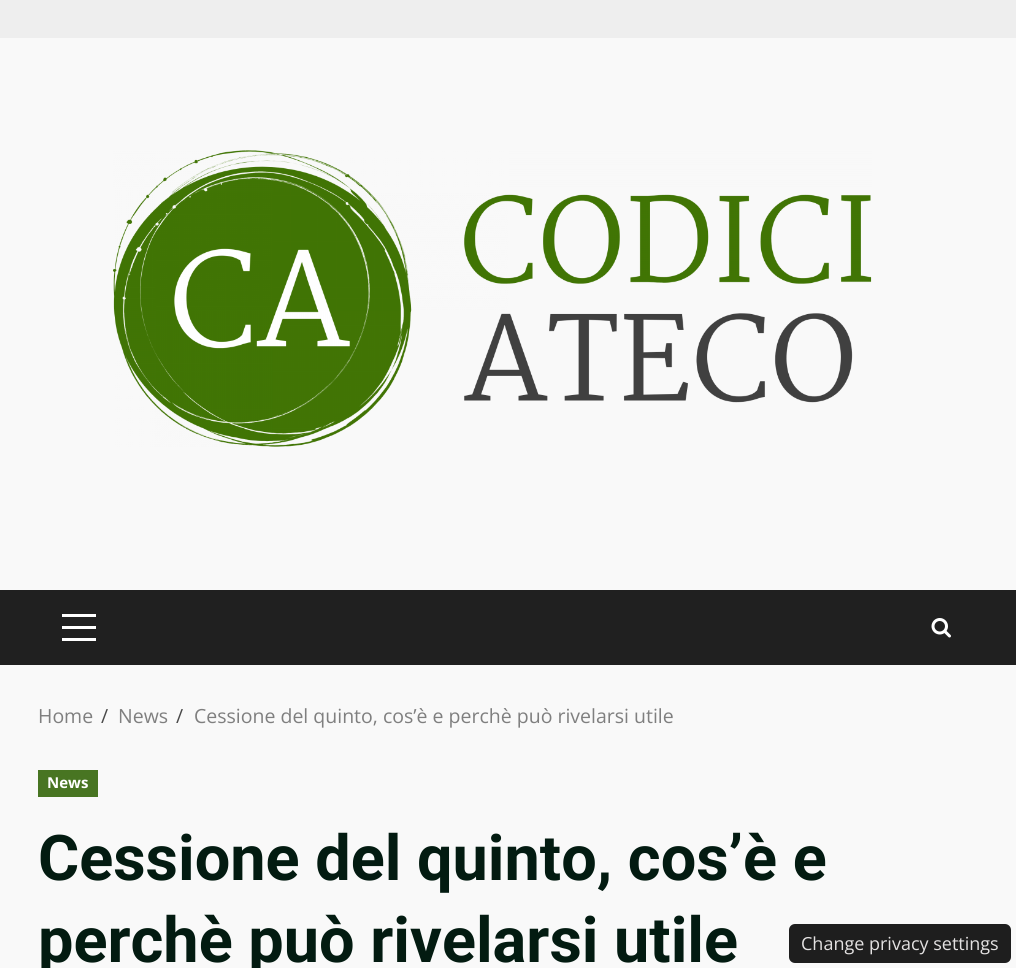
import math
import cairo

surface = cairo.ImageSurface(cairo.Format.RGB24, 1016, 968)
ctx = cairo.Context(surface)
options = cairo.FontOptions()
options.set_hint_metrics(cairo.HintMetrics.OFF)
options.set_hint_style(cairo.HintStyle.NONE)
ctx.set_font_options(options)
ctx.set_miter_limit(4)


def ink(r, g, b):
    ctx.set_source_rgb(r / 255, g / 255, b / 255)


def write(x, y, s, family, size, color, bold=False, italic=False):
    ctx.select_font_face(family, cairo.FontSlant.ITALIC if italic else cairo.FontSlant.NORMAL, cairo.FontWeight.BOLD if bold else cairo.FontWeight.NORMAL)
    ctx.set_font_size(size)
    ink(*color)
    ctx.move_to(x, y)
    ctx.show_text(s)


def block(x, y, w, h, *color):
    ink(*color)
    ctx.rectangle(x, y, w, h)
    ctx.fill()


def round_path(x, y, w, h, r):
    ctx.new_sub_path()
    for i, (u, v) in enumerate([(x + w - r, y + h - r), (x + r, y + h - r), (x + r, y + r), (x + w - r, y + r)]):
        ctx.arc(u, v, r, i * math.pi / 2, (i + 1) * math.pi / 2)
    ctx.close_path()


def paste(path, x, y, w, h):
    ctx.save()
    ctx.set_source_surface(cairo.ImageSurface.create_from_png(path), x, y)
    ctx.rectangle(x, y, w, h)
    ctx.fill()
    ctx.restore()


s1 = dict(family="Open Sans", size=19.5, color=(127, 127, 127))
s2 = dict(family="Open Sans", size=19.5, color=(74, 74, 74))
s3 = dict(family="Open Sans", size=15, color=(255, 255, 255), bold=True)
s4 = dict(family="Roboto", size=63, color=(3, 27, 17), bold=True)
s5 = dict(family="Open Sans", size=18, color=(227, 225, 225))

ink(238, 238, 238)
ctx.paint()
block(0, 38, 1016, 930, 249, 249, 249)
paste("pic1.png", 113, 150, 759, 297)
block(0, 590, 1016, 75, 32, 32, 32)
block(62, 626, 34, 3, 255, 255, 255)
block(62, 614, 34, 3, 255, 255, 255)
block(62, 638, 34, 3, 255, 255, 255)
paste("pic2.png", 931, 618, 20, 20)
write(38, 723, "Home", **s1)
write(101, 723, "/", **s2)
write(118, 723, "News", **s1)
write(176, 723, "/", **s2)
write(194, 723, "Cessione del quinto, cos’è e perchè può rivelarsi utile", **s1)
block(38, 770, 60, 27, 72, 117, 34)
write(47, 788, "News", **s3)
write(38, 880, "Cessione del quinto, cos’è e", **s4)
write(38, 962, "perchè può rivelarsi utile", **s4)
ink(30, 30, 30)
round_path(789, 924, 222, 39, 6)
ctx.fill()
write(801, 950, "Change privacy settings", **s5)
surface.write_to_png("screenshot.png")
